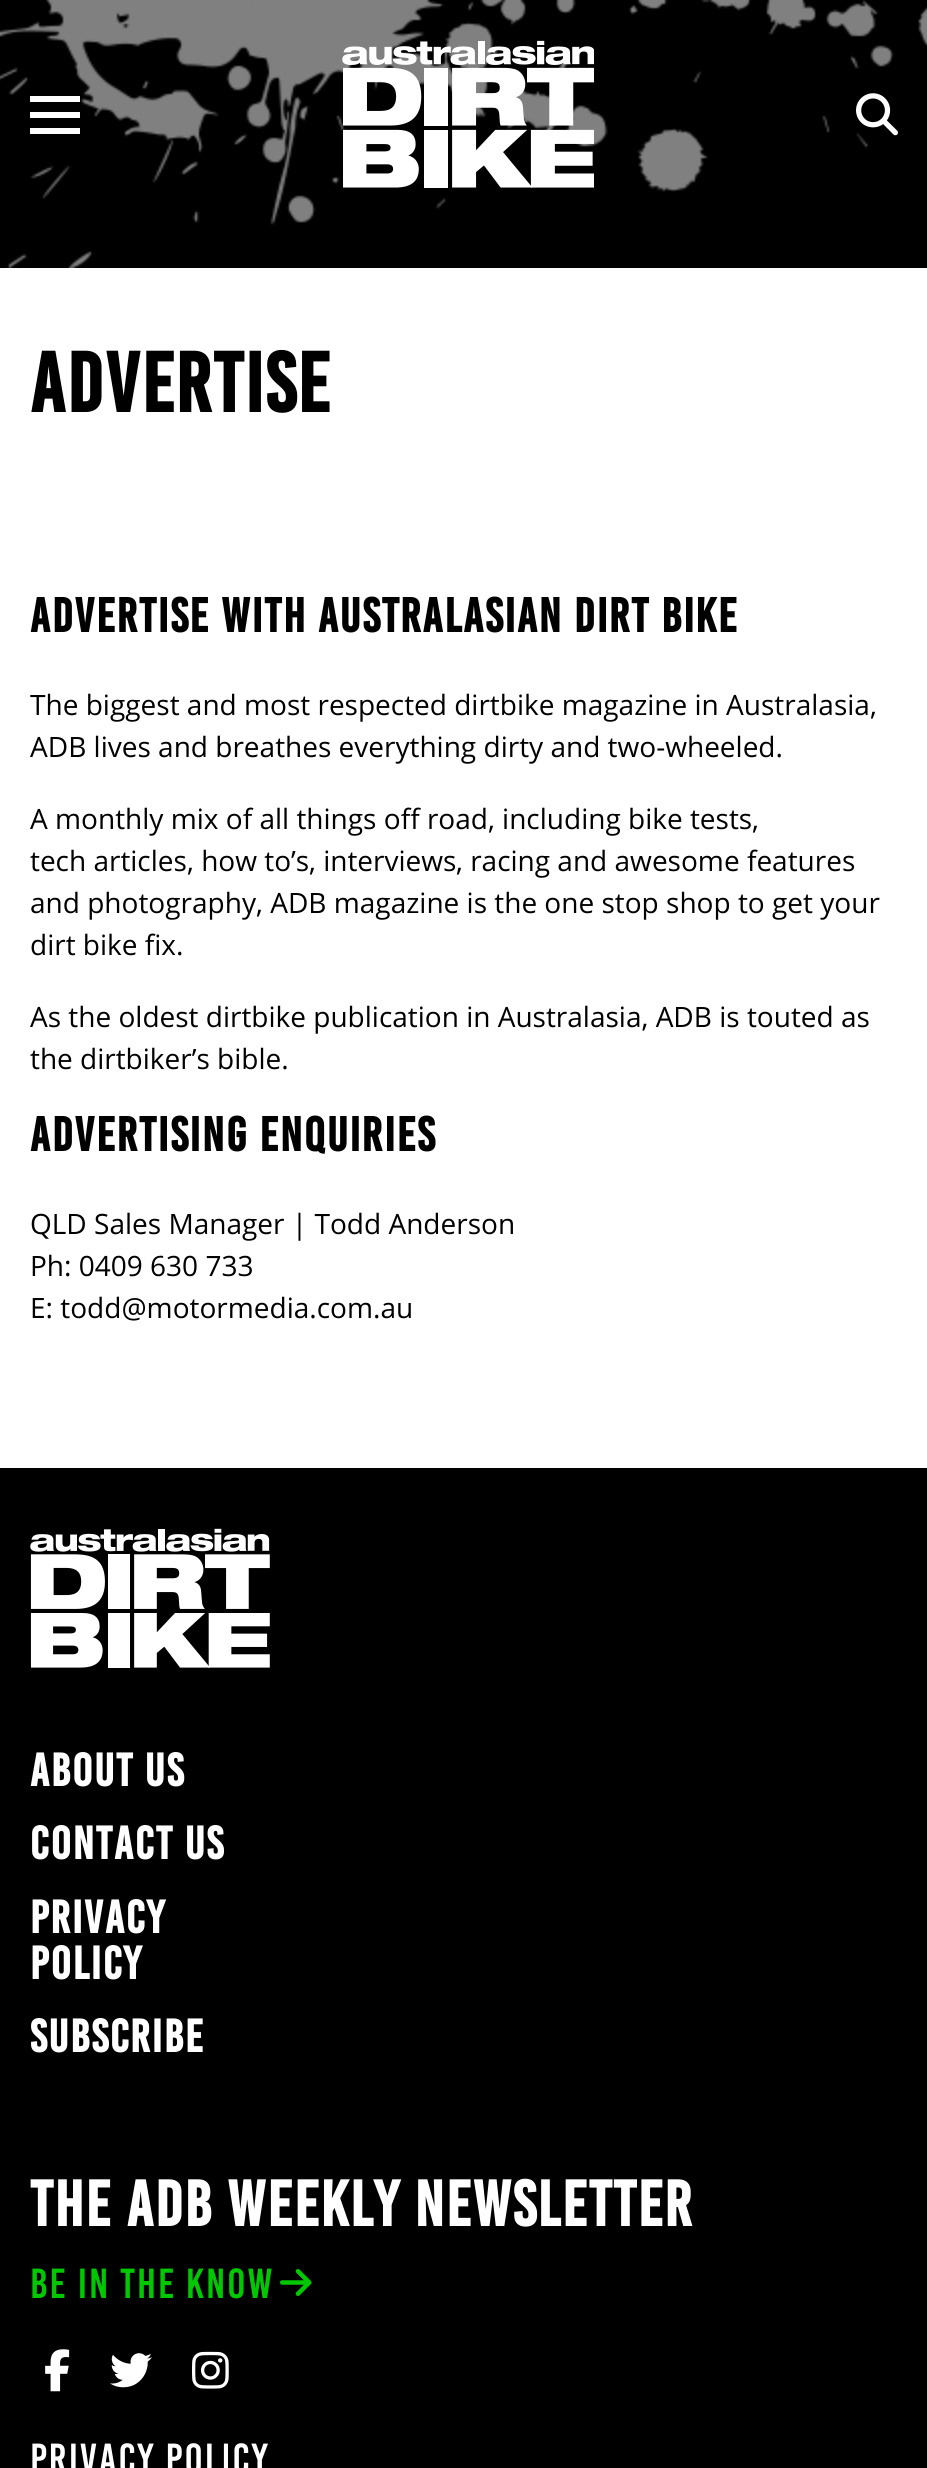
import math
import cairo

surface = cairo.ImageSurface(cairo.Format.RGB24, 927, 2468)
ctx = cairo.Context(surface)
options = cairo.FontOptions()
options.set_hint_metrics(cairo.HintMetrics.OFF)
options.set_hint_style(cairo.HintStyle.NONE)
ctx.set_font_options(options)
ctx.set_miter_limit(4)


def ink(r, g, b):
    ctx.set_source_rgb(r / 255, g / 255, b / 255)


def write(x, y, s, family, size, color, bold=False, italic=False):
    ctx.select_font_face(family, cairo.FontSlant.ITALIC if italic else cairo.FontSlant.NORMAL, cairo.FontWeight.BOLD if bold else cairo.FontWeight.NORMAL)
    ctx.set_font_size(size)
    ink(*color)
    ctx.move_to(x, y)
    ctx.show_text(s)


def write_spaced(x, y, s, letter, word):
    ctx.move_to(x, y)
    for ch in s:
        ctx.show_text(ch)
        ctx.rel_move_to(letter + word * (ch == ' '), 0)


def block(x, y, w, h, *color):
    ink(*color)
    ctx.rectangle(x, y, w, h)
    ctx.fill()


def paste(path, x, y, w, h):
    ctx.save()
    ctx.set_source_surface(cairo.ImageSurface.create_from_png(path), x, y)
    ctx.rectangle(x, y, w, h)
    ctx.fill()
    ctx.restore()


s1 = dict(family="Open Sans", size=28, color=(0, 0, 0))

ink(0, 0, 0)
ctx.paint()
paste("pic1.png", 0, 0, 927, 268)
block(30, 96, 50, 6, 255, 255, 255)
block(30, 112, 50, 6, 255, 255, 255)
block(30, 128, 50, 6, 255, 255, 255)
paste("pic2.png", 342, 40, 252, 148)
paste("pic3.png", 856, 93, 42, 43)
block(0, 268, 927, 1200, 255, 255, 255)
ctx.select_font_face("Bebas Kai", cairo.FontSlant.NORMAL, cairo.FontWeight.BOLD)
ctx.set_font_size(84)
ink(0, 0, 0)
write_spaced(30, 412, "ADVERTISE", 2, 0)
ctx.set_font_size(48)
write_spaced(30, 632, "ADVERTISE WITH AUSTRALASIAN DIRT BIKE", 2, 0)
write(30, 715, "The biggest and most respected dirtbike magazine in Australasia,", **s1)
write(30, 757, "ADB lives and breathes everything dirty and two-wheeled.", **s1)
write(30, 829, "A monthly mix of all things off road, including bike tests", **s1)
write(752, 829, ",", **s1)
write(30, 871, "tech articles", **s1)
write(187, 871, ", how to’s", **s1)
write(309, 871, ", interviews", **s1)
write(456, 871, ", racing and awesome features", **s1)
write(30, 913, "and photography, ADB magazine is the one stop shop to get your", **s1)
write(30, 955, "dirt bike fix.", **s1)
write(30, 1027, "As the oldest dirtbike publication in Australasia, ADB is touted as", **s1)
write(30, 1069, "the dirtbiker’s bible.", **s1)
ctx.select_font_face("Bebas Kai", cairo.FontSlant.NORMAL, cairo.FontWeight.BOLD)
ctx.set_font_size(48)
write_spaced(30, 1151, "ADVERTISING ENQUIRIES", 2, 0)
write(30, 1234, "QLD Sales Manager | Todd Anderson", **s1)
write(30, 1276, "Ph: 0409 630 733", **s1)
write(30, 1318, "E: todd@motormedia.com.au", **s1)
paste("pic4.png", 30, 1528, 240, 140)
ctx.select_font_face("Bebas Kai", cairo.FontSlant.NORMAL, cairo.FontWeight.BOLD)
ctx.set_font_size(46)
ink(255, 255, 255)
write_spaced(30, 1786, "ABOUT US", 2, 0)
write_spaced(30, 1859, "CONTACT US", 2, 0)
write_spaced(30, 1933, "PRIVACY", 2, 0)
write_spaced(30, 1979, "POLICY", 2, 0)
write_spaced(30, 2052, "SUBSCRIBE", 2, 0)
ctx.set_font_size(64)
write_spaced(30, 2226, "THE ADB WEEKLY NEWSLETTER", 2, 0)
ctx.select_font_face("Bebas Kai")
ctx.set_font_size(42)
ink(0, 200, 0)
write_spaced(30, 2298, "BE IN THE KNOW", 2, 0)
paste("pic5.png", 280, 2269, 32, 27)
paste("pic6.png", 45, 2349, 25, 43)
paste("pic7.png", 110, 2353, 42, 35)
paste("pic8.png", 192, 2351, 37, 38)
ink(255, 255, 255)
write_spaced(30, 2473, "Privacy Policy", 2, 0)
surface.write_to_png("screenshot.png")
